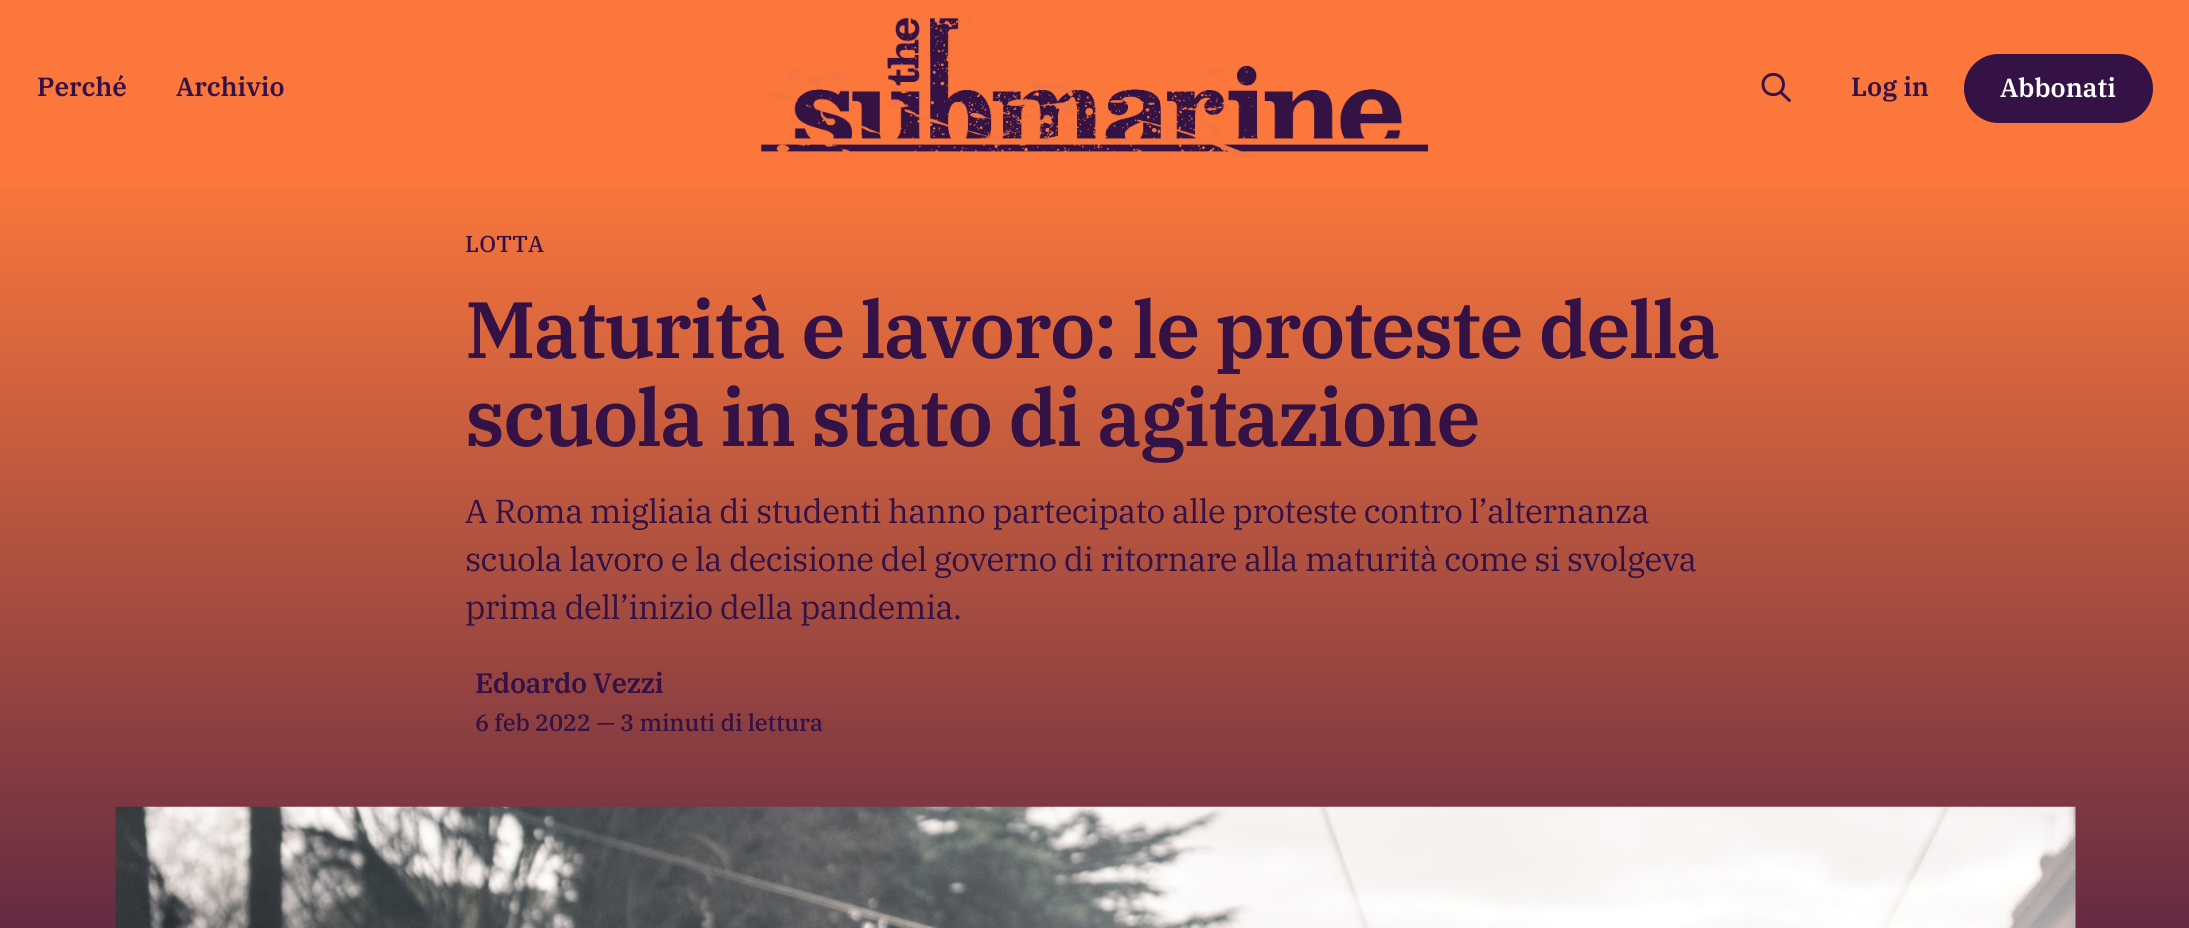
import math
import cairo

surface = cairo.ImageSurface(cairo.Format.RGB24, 2189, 928)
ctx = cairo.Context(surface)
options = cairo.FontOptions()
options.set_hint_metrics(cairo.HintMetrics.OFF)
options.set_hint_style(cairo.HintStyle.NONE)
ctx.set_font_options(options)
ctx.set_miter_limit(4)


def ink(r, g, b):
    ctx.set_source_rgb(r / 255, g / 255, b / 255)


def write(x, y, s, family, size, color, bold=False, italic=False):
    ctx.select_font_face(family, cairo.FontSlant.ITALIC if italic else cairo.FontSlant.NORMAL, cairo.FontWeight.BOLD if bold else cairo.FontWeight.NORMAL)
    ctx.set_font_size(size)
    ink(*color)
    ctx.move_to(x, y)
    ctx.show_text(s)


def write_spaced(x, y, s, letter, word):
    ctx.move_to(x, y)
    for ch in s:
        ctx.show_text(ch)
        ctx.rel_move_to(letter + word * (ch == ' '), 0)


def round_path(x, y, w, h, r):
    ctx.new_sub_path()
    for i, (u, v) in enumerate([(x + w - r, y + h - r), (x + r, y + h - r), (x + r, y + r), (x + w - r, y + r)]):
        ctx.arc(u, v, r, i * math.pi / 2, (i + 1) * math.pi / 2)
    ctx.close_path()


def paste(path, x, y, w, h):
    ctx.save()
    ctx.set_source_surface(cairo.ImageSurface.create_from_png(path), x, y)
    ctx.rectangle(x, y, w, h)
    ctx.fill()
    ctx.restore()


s1 = dict(family="IBM Plex Serif SemiBold", size=26.25, color=(52, 18, 69))
s2 = dict(family="IBM Plex Serif SemiBold", size=26.25, color=(255, 255, 255))

ink(251, 119, 60)
ctx.paint()
write(37, 96, "Perché", **s1)
write(176, 96, "Archivio", **s1)
paste("pic1.png", 761, 17, 667, 141)
ctx.new_path()
ctx.move_to(1789.5, 100.5)
ctx.line_to(1780.5, 92)
ctx.move_to(1783.5, 84.5)
ctx.curve_to(1783.5, 98, 1763, 98, 1763, 84.5)
ctx.curve_to(1763, 71, 1783.5, 71, 1783.5, 84.5)
ctx.close_path()
ctx.set_line_width(2.9)
ctx.set_line_cap(cairo.LineCap.ROUND)
ctx.set_line_join(cairo.LineJoin.ROUND)
ctx.stroke()
write(1851, 96, "Log in", **s1)
round_path(1964, 54, 189, 69, 34.5)
ctx.fill()
write(2000, 97, "Abbonati", **s2)
gradient = cairo.LinearGradient(1095, 175, 1095, 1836)
gradient.add_color_stop_rgba(0, 0.984, 0.467, 0.235, 1)
gradient.add_color_stop_rgba(0.6, 0.204, 0.071, 0.271, 1)
ctx.set_source(gradient)
ctx.rectangle(0, 188, 2189, 740)
ctx.fill()
ctx.select_font_face("IBM Plex Serif Medium")
ctx.set_font_size(23)
ink(52, 18, 69)
write_spaced(465, 252, "LOTTA", 0.25, 0)
ctx.select_font_face("IBM Plex Serif SemiBold")
ctx.set_font_size(79.6)
write_spaced(465, 358, "Maturità e lavoro: le proteste della", -1.75, 0)
write_spaced(465, 446, "scuola in stato di agitazione", -1.75, 0)
ctx.select_font_face("IBM Plex Serif")
ctx.set_font_size(33.2)
write_spaced(465, 523, "A Roma migliaia di studenti hanno partecipato alle proteste contro l’alternanza", -0.6, 0)
write_spaced(465, 571, "scuola lavoro e la decisione del governo di ritornare alla maturità come si svolgeva", -0.6, 0)
write_spaced(465, 619, "prima dell’inizio della pandemia.", -0.6, 0)
ctx.select_font_face("IBM Plex Serif SemiBold")
ctx.set_font_size(28)
write_spaced(475, 693, "Edoardo Vezzi", -0.4, 0)
ctx.select_font_face("IBM Plex Serif Medium")
ctx.set_font_size(23.6)
write_spaced(475, 731, "6 feb 2022 — 3 minuti di lettura", -0.15, 0)
paste("pic2.png", 115, 806, 1961, 122)
surface.write_to_png("screenshot.png")
